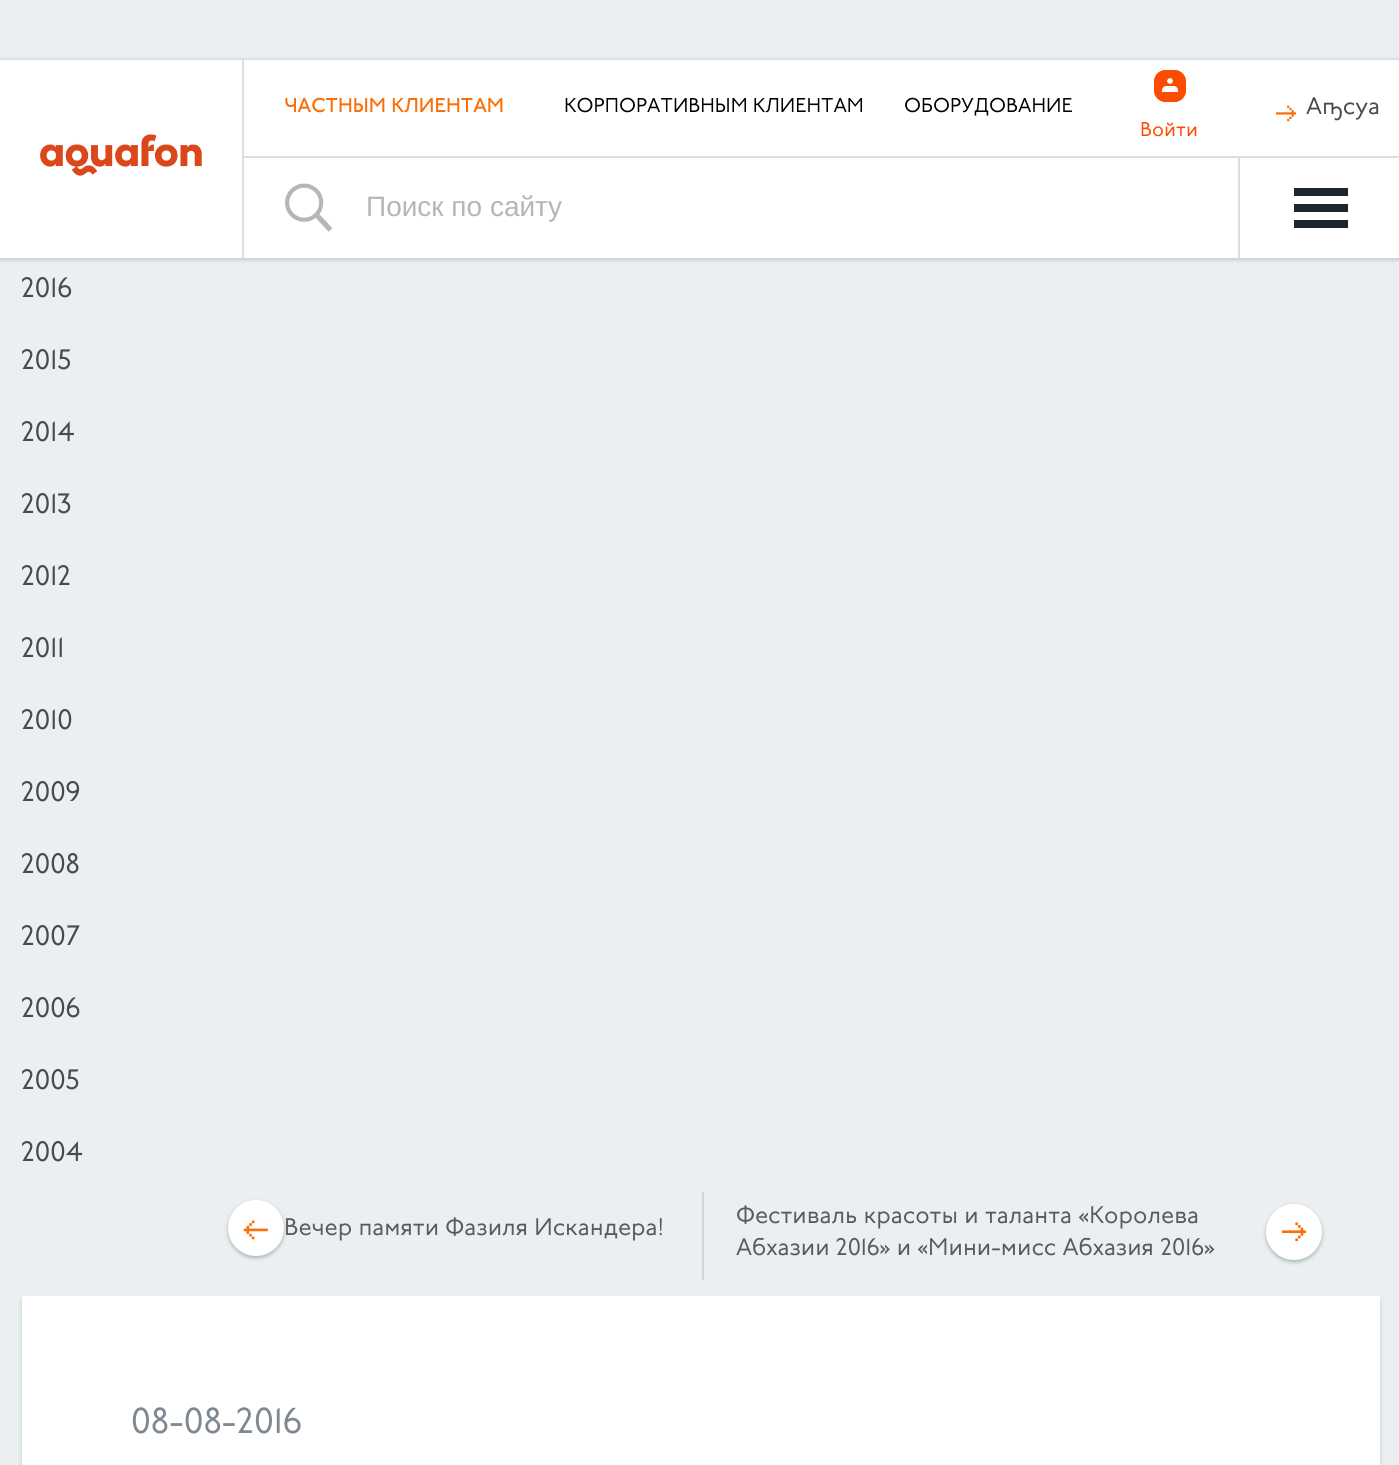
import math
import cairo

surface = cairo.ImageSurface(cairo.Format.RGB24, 1399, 1465)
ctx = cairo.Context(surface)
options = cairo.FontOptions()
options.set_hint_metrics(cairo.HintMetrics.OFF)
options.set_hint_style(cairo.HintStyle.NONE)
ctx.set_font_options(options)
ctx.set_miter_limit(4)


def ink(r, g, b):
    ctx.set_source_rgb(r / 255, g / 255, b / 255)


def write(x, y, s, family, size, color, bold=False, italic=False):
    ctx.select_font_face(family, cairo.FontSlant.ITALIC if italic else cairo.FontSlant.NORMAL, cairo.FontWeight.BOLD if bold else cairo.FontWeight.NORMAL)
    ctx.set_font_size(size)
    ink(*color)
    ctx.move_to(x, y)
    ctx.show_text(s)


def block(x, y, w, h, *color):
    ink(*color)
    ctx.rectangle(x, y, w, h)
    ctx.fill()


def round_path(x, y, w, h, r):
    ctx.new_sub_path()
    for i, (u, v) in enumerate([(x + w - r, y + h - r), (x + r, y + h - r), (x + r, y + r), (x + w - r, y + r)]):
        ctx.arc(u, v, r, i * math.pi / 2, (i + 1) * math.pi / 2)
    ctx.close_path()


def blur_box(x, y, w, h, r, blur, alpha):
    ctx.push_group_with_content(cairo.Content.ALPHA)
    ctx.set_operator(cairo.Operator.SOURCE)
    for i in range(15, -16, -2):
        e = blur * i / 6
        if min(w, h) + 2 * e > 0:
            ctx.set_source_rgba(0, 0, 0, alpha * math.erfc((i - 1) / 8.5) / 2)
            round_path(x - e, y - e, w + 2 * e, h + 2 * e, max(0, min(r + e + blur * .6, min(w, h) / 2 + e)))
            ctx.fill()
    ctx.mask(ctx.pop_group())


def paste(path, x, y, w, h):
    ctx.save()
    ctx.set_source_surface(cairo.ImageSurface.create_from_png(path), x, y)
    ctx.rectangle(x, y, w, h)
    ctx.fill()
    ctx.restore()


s1 = dict(family="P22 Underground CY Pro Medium", size=20, color=(251, 111, 7))
s2 = dict(family="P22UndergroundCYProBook", size=20, color=(0, 0, 0))
s3 = dict(family="P22UndergroundCYProBook", size=24, color=(74, 74, 74))
s4 = dict(family="P22UndergroundCYProBook", size=20, color=(252, 76, 2))
s5 = dict(family="Liberation Sans", size=28, color=(182, 182, 182))
s6 = dict(family="P22UndergroundCYProBook", size=28, color=(74, 74, 74))
s7 = dict(family="P22UndergroundCYProBook", size=24, color=(90, 90, 90))
s8 = dict(family="P22UndergroundCYProBook", size=36, color=(127, 136, 145))

ink(235, 239, 241)
ctx.paint()
ink(0, 0, 0)
blur_box(0, 60, 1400, 200, 0, 2, 0.19)
block(0, 60, 1399, 198, 255, 255, 255)
block(0, 258, 1399, 2, 212, 212, 212)
block(242, 60, 2, 198, 222, 222, 222)
paste("pic1.png", 40, 134, 162, 42)
block(244, 156, 1155, 2, 222, 222, 222)
write(284, 112, "ЧАСТНЫМ КЛИЕНТАМ", **s1)
write(564, 112, "КОРПОРАТИВНЫМ КЛИЕНТАМ", **s2)
write(904, 112, "ОБОРУДОВАНИЕ", **s2)
paste("pic2.png", 1276, 105, 20, 17)
write(1306, 114, "Аҧсуа", **s3)
paste("pic3.png", 1154, 70, 32, 32)
write(1140, 136, "Войти", **s4)
paste("pic4.png", 285, 183, 48, 49)
write(366, 216, "Поиск по сайту", **s5)
block(1238, 158, 2, 100, 222, 222, 222)
block(1294, 188, 54, 8, 31, 37, 46)
block(1294, 204, 54, 8, 31, 37, 46)
block(1294, 220, 54, 8, 31, 37, 46)
write(21, 297, "2016", **s6)
write(21, 369, "2015", **s6)
write(21, 441, "2014", **s6)
write(21, 513, "2013", **s6)
write(21, 585, "2012", **s6)
write(21, 657, "2011", **s6)
write(21, 729, "2010", **s6)
write(21, 801, "2009", **s6)
write(21, 873, "2008", **s6)
write(21, 945, "2007", **s6)
write(21, 1017, "2006", **s6)
write(21, 1089, "2005", **s6)
write(21, 1161, "2004", **s6)
ink(169, 179, 183)
blur_box(228, 1202, 56, 56, 28, 2, 1)
ink(255, 255, 255)
ctx.arc(256, 1228, 28, 0, 2 * math.pi)
ctx.fill()
paste("pic5.png", 243, 1220, 25, 20)
write(284, 1235, "Вечер памяти Фазиля Искандера!", **s7)
block(702, 1192, 2, 88, 212, 212, 212)
write(736, 1223, "Фестиваль красоты и таланта «Королева", **s7)
write(736, 1255, "Абхазии 2016» и «Мини-мисс Абхазия 2016»", **s7)
ink(169, 179, 183)
blur_box(1266, 1206, 56, 56, 28, 2, 1)
ink(255, 255, 255)
ctx.arc(1294, 1232, 28, 0, 2 * math.pi)
ctx.fill()
paste("pic6.png", 1282, 1222, 24, 20)
ink(120, 142, 164)
blur_box(22, 1300, 1358, 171, 0, 2, 0.38)
block(22, 1296, 1358, 169, 255, 255, 255)
write(131, 1433, "08-08-2016", **s8)
surface.write_to_png("screenshot.png")
